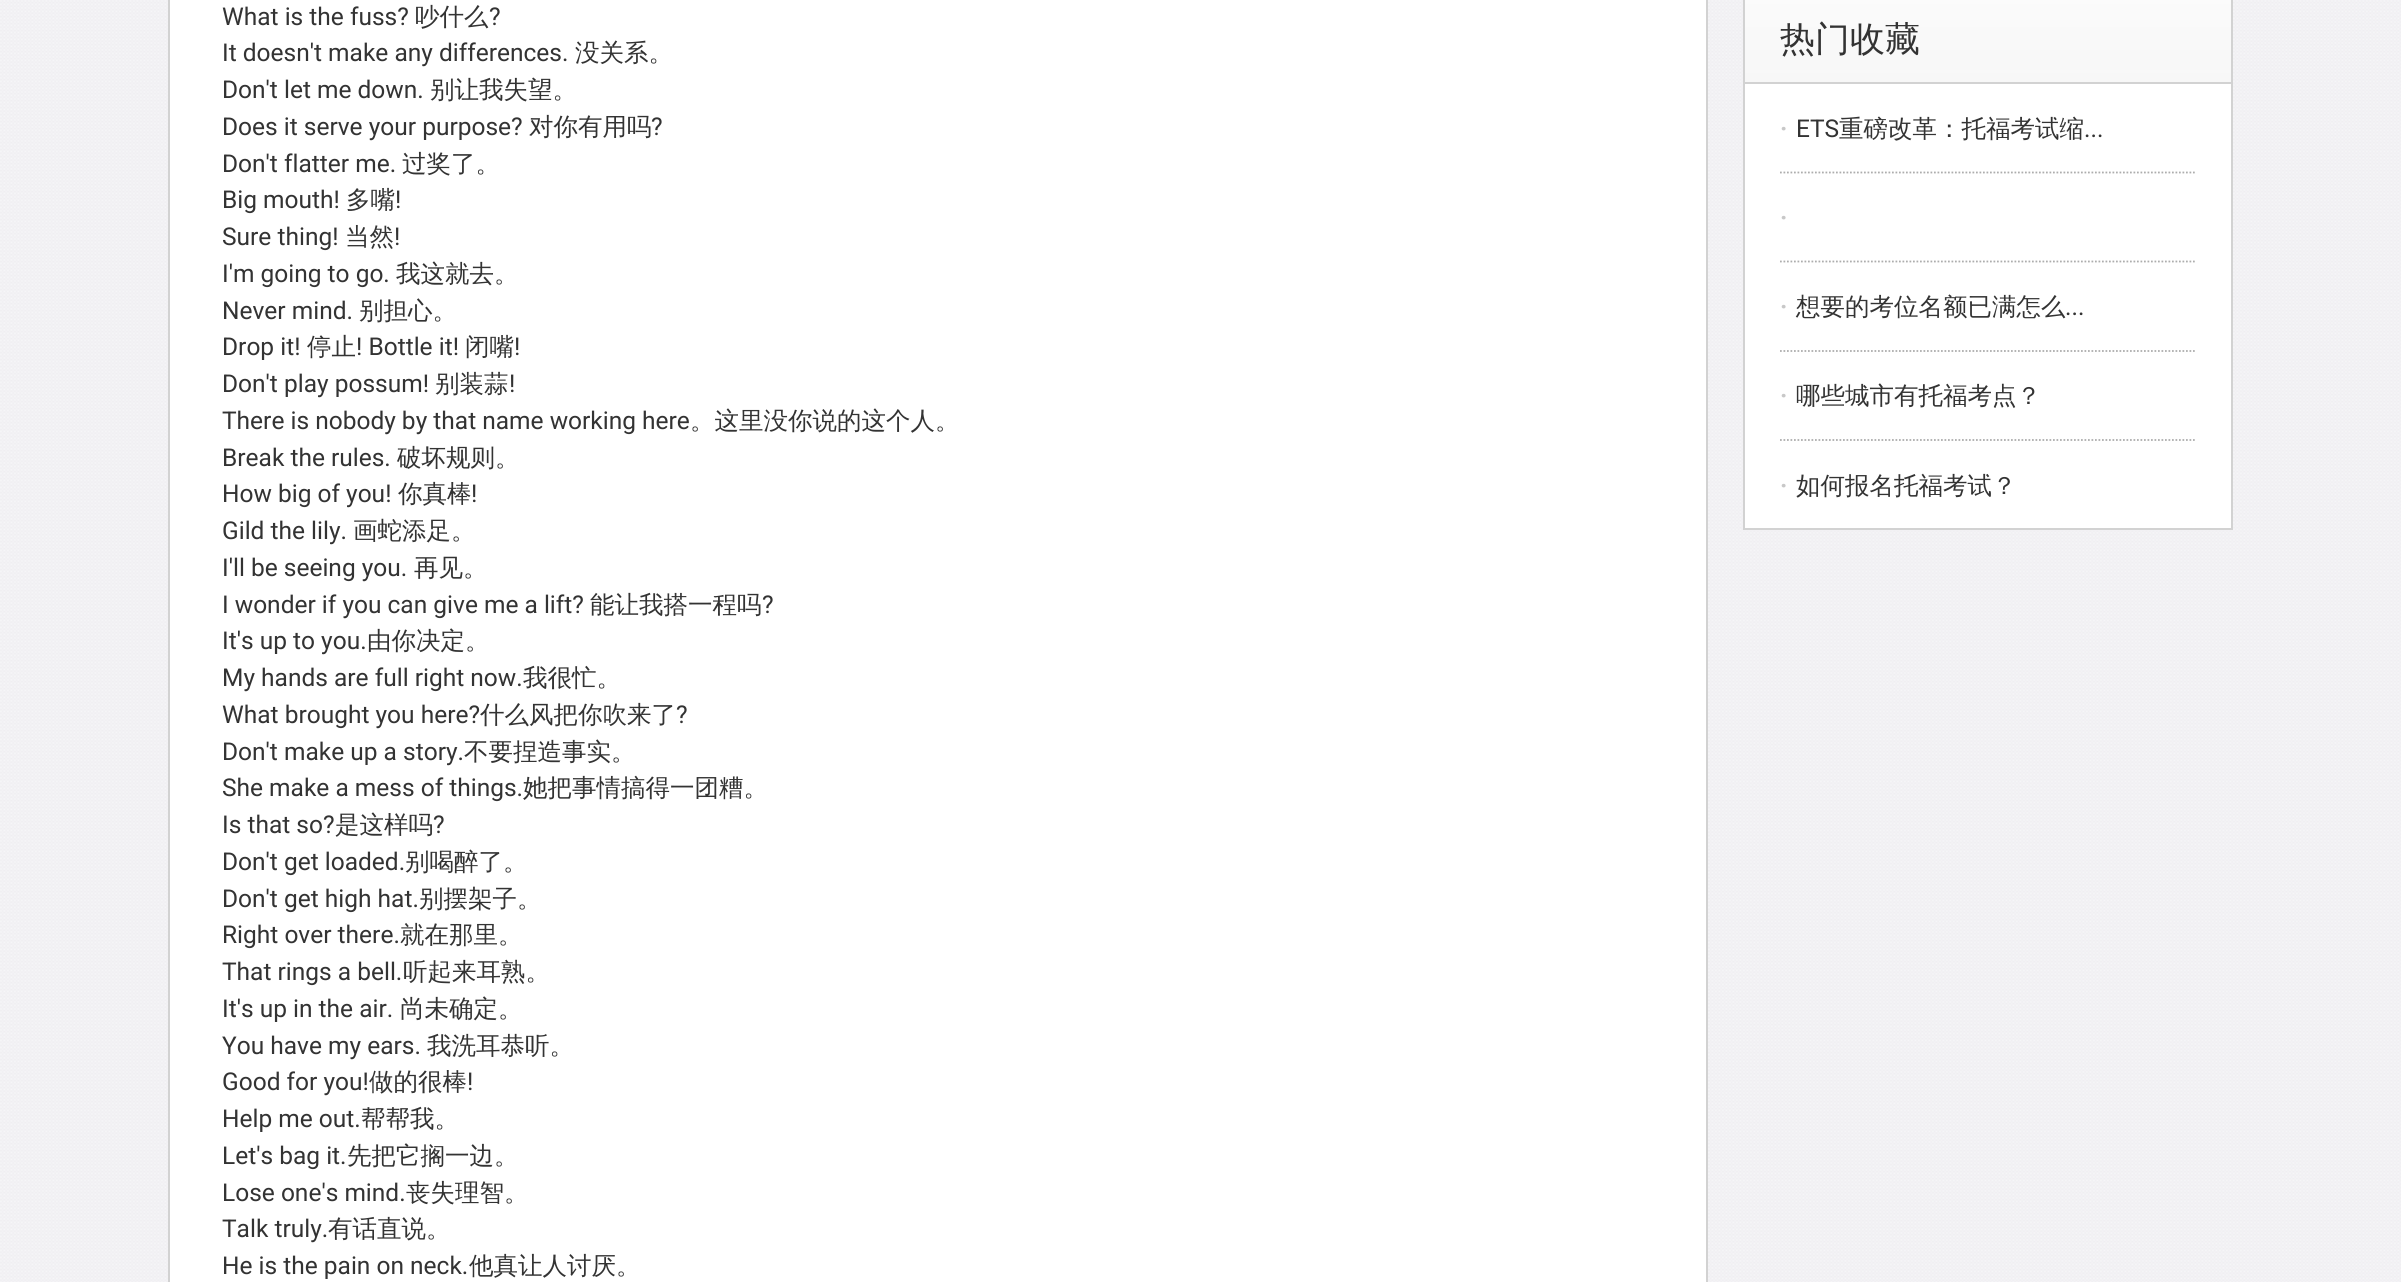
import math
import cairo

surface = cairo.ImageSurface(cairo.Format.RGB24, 2401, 1282)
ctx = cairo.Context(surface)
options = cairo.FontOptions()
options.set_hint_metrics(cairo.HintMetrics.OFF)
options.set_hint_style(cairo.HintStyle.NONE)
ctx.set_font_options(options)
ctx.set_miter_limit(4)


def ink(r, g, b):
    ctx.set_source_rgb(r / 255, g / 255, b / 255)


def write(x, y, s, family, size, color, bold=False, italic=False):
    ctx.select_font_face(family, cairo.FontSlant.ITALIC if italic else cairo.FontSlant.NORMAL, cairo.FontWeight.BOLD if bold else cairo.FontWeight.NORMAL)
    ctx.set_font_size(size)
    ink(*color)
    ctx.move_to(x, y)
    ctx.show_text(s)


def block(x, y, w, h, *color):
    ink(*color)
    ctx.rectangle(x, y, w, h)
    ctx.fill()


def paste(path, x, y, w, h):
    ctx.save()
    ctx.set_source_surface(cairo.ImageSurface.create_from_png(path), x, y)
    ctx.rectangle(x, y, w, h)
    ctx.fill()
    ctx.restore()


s1 = dict(family="Roboto", size=24.5, color=(51, 51, 51))
s2 = dict(family="WenQuanYi Zen Hei Medium", size=24.5, color=(51, 51, 51))
s3 = dict(family="WenQuanYi Zen Hei Medium", size=35, color=(51, 51, 51))
s4 = dict(family="Roboto", size=24.5, color=(200, 200, 200), bold=True)

ink(255, 255, 255)
ctx.paint()
paste("pic1.png", 0, 0, 2401, 1282)
ink(255, 255, 255)
ctx.rectangle(169, -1, 1538, 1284)
ctx.fill_preserve()
ink(210, 210, 210)
ctx.stroke()
write(222, 25, "What is the fuss?", **s1)
write(415, 25, "吵什么", **s2)
write(489, 25, "?", **s1)
write(222, 61, "It doesn't make any differences.", **s1)
write(575, 61, "没关系。", **s2)
write(222, 98, "Don't let me down.", **s1)
write(430, 98, "别让我失望。", **s2)
write(222, 135, "Does it serve your purpose?", **s1)
write(529, 135, "对你有用吗", **s2)
write(651, 135, "?", **s1)
write(222, 172, "Don't flatter me.", **s1)
write(402, 172, "过奖了。", **s2)
write(222, 208, "Big mouth!", **s1)
write(346, 208, "多嘴", **s2)
write(395, 208, "!", **s1)
write(222, 245, "Sure thing!", **s1)
write(345, 245, "当然", **s2)
write(394, 245, "!", **s1)
write(222, 282, "I'm going to go.", **s1)
write(396, 282, "我这就去。", **s2)
write(222, 319, "Never mind.", **s1)
write(359, 319, "别担心。", **s2)
write(222, 355, "Drop it!", **s1)
write(307, 355, "停止", **s2)
write(356, 355, "! Bottle it!", **s1)
write(465, 355, "闭嘴", **s2)
write(514, 355, "!", **s1)
write(222, 392, "Don't play possum!", **s1)
write(435, 392, "别装蒜", **s2)
write(509, 392, "!", **s1)
write(222, 429, "There is nobody by that name working here", **s1)
write(690, 429, "。这里没你说的这个人。", **s2)
write(222, 466, "Break the rules.", **s1)
write(397, 466, "破坏规则。", **s2)
write(222, 502, "How big of you!", **s1)
write(398, 502, "你真棒", **s2)
write(471, 502, "!", **s1)
write(222, 539, "Gild the lily.", **s1)
write(353, 539, "画蛇添足。", **s2)
write(222, 576, "I'll be seeing you.", **s1)
write(414, 576, "再见。", **s2)
write(222, 613, "I wonder if you can give me a lift?", **s1)
write(590, 613, "能让我搭一程吗", **s2)
write(762, 613, "?", **s1)
write(222, 649, "It's up to you.", **s1)
write(367, 649, "由你决定。", **s2)
write(222, 686, "My hands are full right now.", **s1)
write(523, 686, "我很忙。", **s2)
write(222, 723, "What brought you here?", **s1)
write(480, 723, "什么风把你吹来了", **s2)
write(676, 723, "?", **s1)
write(222, 760, "Don't make up a story.", **s1)
write(464, 760, "不要捏造事实。", **s2)
write(222, 796, "She make a mess of things.", **s1)
write(523, 796, "她把事情搞得一团糟。", **s2)
write(222, 833, "Is that so?", **s1)
write(335, 833, "是这样吗", **s2)
write(433, 833, "?", **s1)
write(222, 870, "Don't get loaded.", **s1)
write(405, 870, "别喝醉了。", **s2)
write(222, 907, "Don't get high hat.", **s1)
write(419, 907, "别摆架子。", **s2)
write(222, 943, "Right over there.", **s1)
write(400, 943, "就在那里。", **s2)
write(222, 980, "That rings a bell.", **s1)
write(403, 980, "听起来耳熟。", **s2)
write(222, 1017, "It's up in the air.", **s1)
write(400, 1017, "尚未确定。", **s2)
write(222, 1054, "You have my ears.", **s1)
write(427, 1054, "我洗耳恭听。", **s2)
write(222, 1090, "Good for you!", **s1)
write(369, 1090, "做的很棒", **s2)
write(467, 1090, "!", **s1)
write(222, 1127, "Help me out.", **s1)
write(361, 1127, "帮帮我。", **s2)
write(222, 1164, "Let's bag it.", **s1)
write(347, 1164, "先把它搁一边。", **s2)
write(222, 1201, "Lose one's mind.", **s1)
write(406, 1201, "丧失理智。", **s2)
write(222, 1237, "Talk truly.", **s1)
write(328, 1237, "有话直说。", **s2)
write(222, 1274, "He is the pain on neck.", **s1)
write(469, 1274, "他真让人讨厌。", **s2)
block(1745, 84, 486, 444, 255, 255, 255)
ctx.rectangle(1744, -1, 488, 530)
ink(210, 210, 210)
ctx.stroke()
gradient = cairo.LinearGradient(1988, -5.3, 1988, 82)
gradient.add_color_stop_rgba(0, 0.984, 0.984, 0.984, 1)
gradient.add_color_stop_rgba(1, 0.969, 0.969, 0.969, 1)
ctx.set_source(gradient)
ctx.rectangle(1745, 0, 486, 82)
ctx.fill()
block(1745, 82, 486, 2, 210, 210, 210)
write(1780, 51, "热门收藏", **s3)
ctx.new_path()
ctx.move_to(1780, 172.5)
ctx.line_to(2196, 172.5)
ink(173, 173, 173)
ctx.set_line_width(1.8)
ctx.set_dash([1.75, 1.75])
ctx.stroke()
write(1780, 137, "·", **s4)
write(1796, 137, "ETS", **s1)
write(1839, 137, "重磅改革：托福考试缩", **s2)
write(2084, 137, "...", **s1)
ctx.new_path()
ctx.move_to(1780, 261.5)
ctx.line_to(2196, 261.5)
ink(173, 173, 173)
ctx.stroke()
write(1780, 226, "·", **s4)
ctx.new_path()
ctx.move_to(1780, 351)
ctx.line_to(2196, 351)
ink(173, 173, 173)
ctx.stroke()
write(1780, 315, "·", **s4)
write(1796, 315, "想要的考位名额已满怎么", **s2)
write(2065, 315, "...", **s1)
ctx.new_path()
ctx.move_to(1780, 440)
ctx.line_to(2196, 440)
ink(173, 173, 173)
ctx.stroke()
write(1780, 404, "·", **s4)
write(1796, 404, "哪些城市有托福考点？", **s2)
write(1780, 494, "·", **s4)
write(1796, 494, "如何报名托福考试？", **s2)
surface.write_to_png("screenshot.png")
